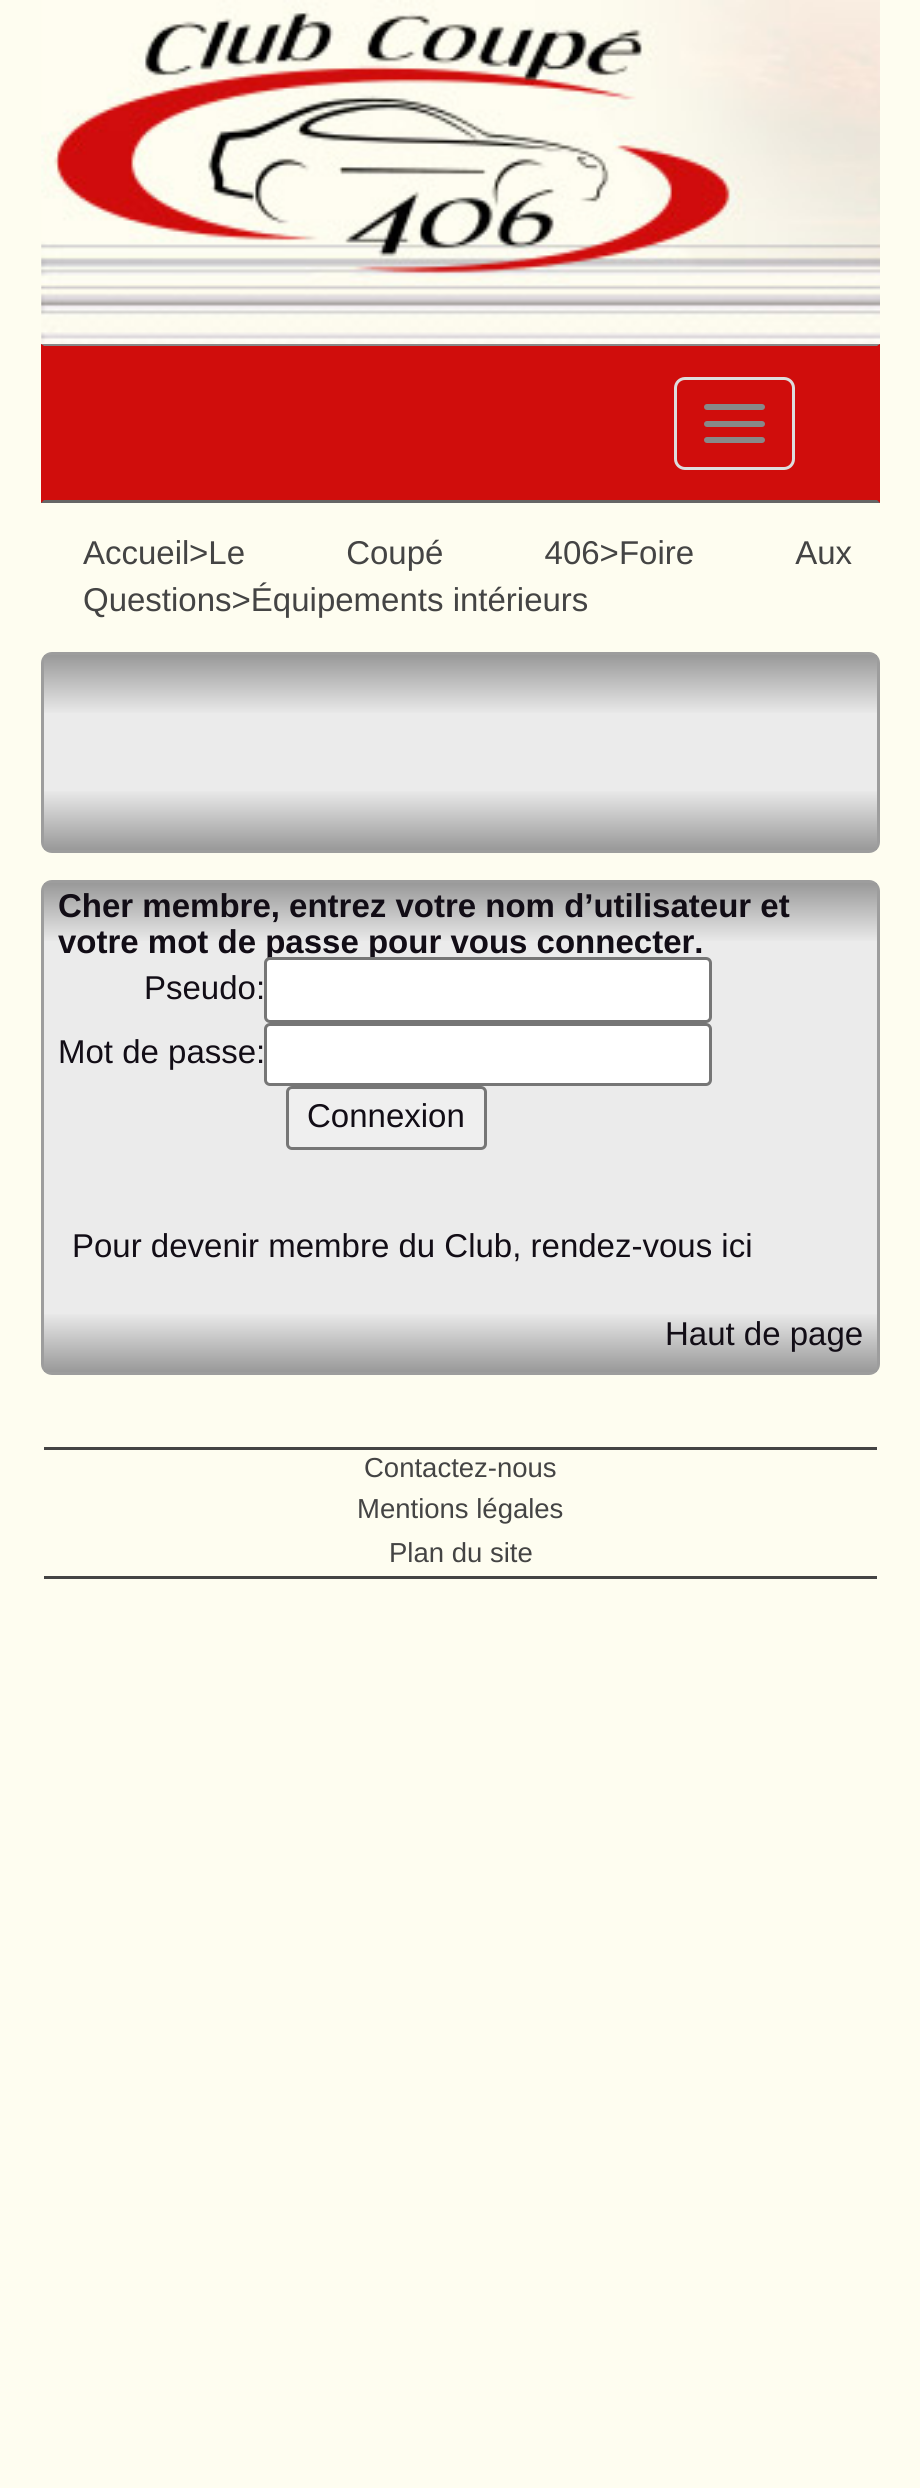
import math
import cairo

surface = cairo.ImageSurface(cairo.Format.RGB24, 920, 2488)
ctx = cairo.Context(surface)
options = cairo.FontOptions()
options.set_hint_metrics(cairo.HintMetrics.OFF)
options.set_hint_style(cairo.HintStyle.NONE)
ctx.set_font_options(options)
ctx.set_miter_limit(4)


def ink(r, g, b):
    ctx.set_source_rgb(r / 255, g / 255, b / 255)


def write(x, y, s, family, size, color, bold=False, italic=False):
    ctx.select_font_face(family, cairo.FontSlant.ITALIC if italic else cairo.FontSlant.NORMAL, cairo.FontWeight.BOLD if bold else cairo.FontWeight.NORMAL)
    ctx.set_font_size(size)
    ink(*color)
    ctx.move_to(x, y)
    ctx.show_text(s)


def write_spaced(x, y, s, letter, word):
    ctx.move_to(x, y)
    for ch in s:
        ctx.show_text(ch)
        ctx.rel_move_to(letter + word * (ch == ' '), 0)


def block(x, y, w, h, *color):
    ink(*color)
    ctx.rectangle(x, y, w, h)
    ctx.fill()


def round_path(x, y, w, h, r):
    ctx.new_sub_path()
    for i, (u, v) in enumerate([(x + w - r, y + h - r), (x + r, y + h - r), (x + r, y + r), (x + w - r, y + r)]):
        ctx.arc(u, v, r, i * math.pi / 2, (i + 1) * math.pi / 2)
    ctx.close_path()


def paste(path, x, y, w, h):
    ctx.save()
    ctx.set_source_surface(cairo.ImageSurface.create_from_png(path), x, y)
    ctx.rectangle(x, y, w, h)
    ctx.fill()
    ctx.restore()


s1 = dict(family="Liberation Sans", size=33, color=(68, 68, 68))
s2 = dict(family="Liberation Sans", size=33, color=(18, 13, 22), bold=True)
s3 = dict(family="Liberation Sans", size=33, color=(18, 13, 22))
s4 = dict(family="Liberation Sans", size=27.5, color=(68, 68, 68))

ink(254, 253, 240)
ctx.paint()
paste("pic1.png", 41, 0, 839, 344)
block(41, 344, 839, 159, 208, 13, 12)
ink(136, 136, 136)
ctx.new_path()
ctx.move_to(41, 344)
ctx.line_to(880, 344)
ctx.line_to(877, 346)
ctx.line_to(44, 346)
ctx.close_path()
ctx.fill()
ink(102, 102, 102)
ctx.new_path()
ctx.move_to(880, 503)
ctx.line_to(41, 503)
ctx.line_to(44, 500)
ctx.line_to(877, 500)
ctx.close_path()
ctx.fill()
round_path(675.5, 378.5, 118, 90, 9.5)
ink(221, 221, 221)
ctx.set_line_width(3)
ctx.stroke()
ink(136, 136, 136)
round_path(704, 404, 61, 6, 3)
ctx.fill()
round_path(704, 421, 61, 6, 3)
ctx.fill()
round_path(704, 437, 61, 6, 3)
ctx.fill()
write(83, 564, "Accueil", **s1)
write_spaced(189, 564, ">Le Coupé 406>Foire Aux", 0, 92)
write(83, 611, "Questions>Équipements intérieurs", **s1)
ink(235, 235, 235)
round_path(42.5, 653.5, 836, 198, 9.5)
ctx.fill_preserve()
ink(157, 157, 157)
ctx.stroke()
gradient = cairo.LinearGradient(461, 715, 461, 655)
gradient.add_color_stop_rgba(0, 0.922, 0.922, 0.922, 1)
gradient.add_color_stop_rgba(1, 0.6, 0.6, 0.6, 1)
ctx.set_source(gradient)
ctx.rectangle(44, 655, 833, 58)
ctx.fill()
gradient = cairo.LinearGradient(461, 850, 461, 789)
gradient.add_color_stop_rgba(0, 0.6, 0.6, 0.6, 1)
gradient.add_color_stop_rgba(1, 0.922, 0.922, 0.922, 1)
ctx.set_source(gradient)
ctx.rectangle(44, 791, 833, 59)
ctx.fill()
ink(235, 235, 235)
round_path(42.5, 881.5, 836, 492, 9.5)
ctx.fill_preserve()
ink(157, 157, 157)
ctx.stroke()
gradient = cairo.LinearGradient(461, 943, 461, 883)
gradient.add_color_stop_rgba(0, 0.922, 0.922, 0.922, 1)
gradient.add_color_stop_rgba(1, 0.6, 0.6, 0.6, 1)
ctx.set_source(gradient)
ctx.rectangle(44, 883, 833, 58)
ctx.fill()
write(58, 917, "Cher membre, entrez votre nom d’utilisateur et", **s2)
write(58, 953, "votre mot de passe pour vous connecter.", **s2)
write(144, 999, "Pseudo:", **s3)
ink(255, 255, 255)
round_path(265.5, 958.5, 445, 63, 4.5)
ctx.fill_preserve()
ink(118, 118, 118)
ctx.stroke()
write(58, 1063, "Mot de passe:", **s3)
ink(255, 255, 255)
round_path(265.5, 1024.5, 445, 60, 4.5)
ctx.fill_preserve()
ink(118, 118, 118)
ctx.stroke()
ink(239, 239, 239)
round_path(287.5, 1087.5, 198, 61, 4.5)
ctx.fill_preserve()
ink(118, 118, 118)
ctx.stroke()
write(307, 1127, "Connexion", **s3)
write(72, 1257, "Pour devenir membre du Club, rendez-vous ici", **s3)
gradient = cairo.LinearGradient(461, 1372, 461, 1312)
gradient.add_color_stop_rgba(0, 0.6, 0.6, 0.6, 1)
gradient.add_color_stop_rgba(1, 0.922, 0.922, 0.922, 1)
ctx.set_source(gradient)
ctx.rectangle(44, 1314, 833, 58)
ctx.fill()
write(665, 1345, "Haut de page", **s3)
block(44, 1447, 833, 3, 68, 68, 68)
write(364, 1477, "Contactez-nous", **s4)
write(357, 1518, "Mentions légales", **s4)
block(44, 1576, 833, 3, 68, 68, 68)
write(389, 1562, "Plan du site", **s4)
surface.write_to_png("screenshot.png")
